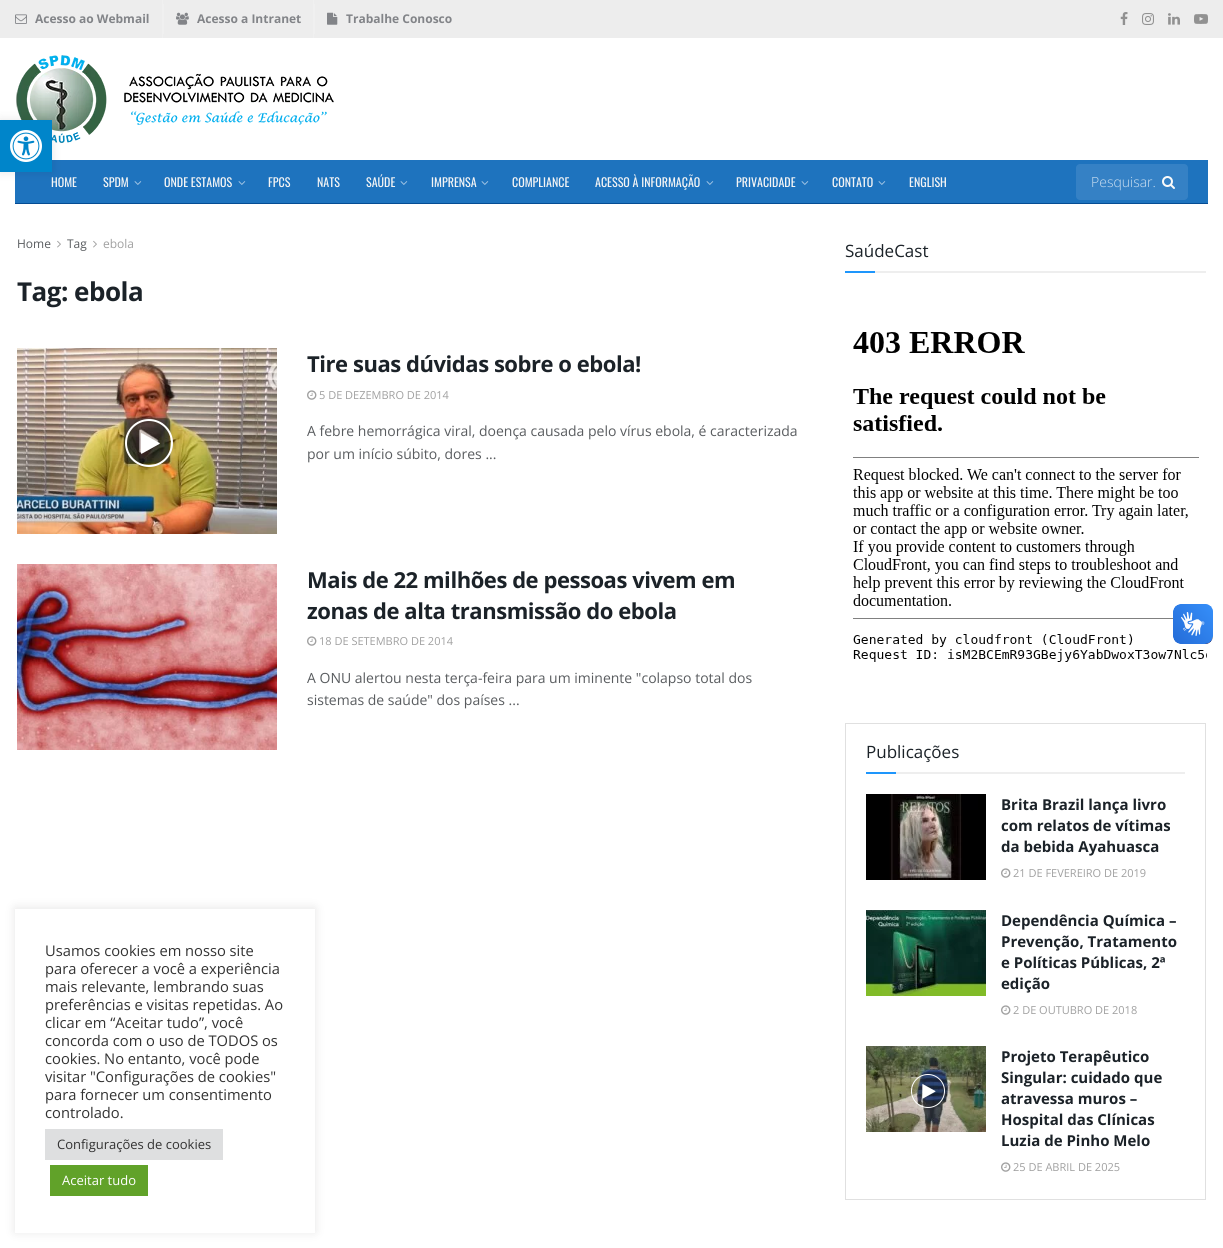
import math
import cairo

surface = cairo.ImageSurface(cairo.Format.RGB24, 1223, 1248)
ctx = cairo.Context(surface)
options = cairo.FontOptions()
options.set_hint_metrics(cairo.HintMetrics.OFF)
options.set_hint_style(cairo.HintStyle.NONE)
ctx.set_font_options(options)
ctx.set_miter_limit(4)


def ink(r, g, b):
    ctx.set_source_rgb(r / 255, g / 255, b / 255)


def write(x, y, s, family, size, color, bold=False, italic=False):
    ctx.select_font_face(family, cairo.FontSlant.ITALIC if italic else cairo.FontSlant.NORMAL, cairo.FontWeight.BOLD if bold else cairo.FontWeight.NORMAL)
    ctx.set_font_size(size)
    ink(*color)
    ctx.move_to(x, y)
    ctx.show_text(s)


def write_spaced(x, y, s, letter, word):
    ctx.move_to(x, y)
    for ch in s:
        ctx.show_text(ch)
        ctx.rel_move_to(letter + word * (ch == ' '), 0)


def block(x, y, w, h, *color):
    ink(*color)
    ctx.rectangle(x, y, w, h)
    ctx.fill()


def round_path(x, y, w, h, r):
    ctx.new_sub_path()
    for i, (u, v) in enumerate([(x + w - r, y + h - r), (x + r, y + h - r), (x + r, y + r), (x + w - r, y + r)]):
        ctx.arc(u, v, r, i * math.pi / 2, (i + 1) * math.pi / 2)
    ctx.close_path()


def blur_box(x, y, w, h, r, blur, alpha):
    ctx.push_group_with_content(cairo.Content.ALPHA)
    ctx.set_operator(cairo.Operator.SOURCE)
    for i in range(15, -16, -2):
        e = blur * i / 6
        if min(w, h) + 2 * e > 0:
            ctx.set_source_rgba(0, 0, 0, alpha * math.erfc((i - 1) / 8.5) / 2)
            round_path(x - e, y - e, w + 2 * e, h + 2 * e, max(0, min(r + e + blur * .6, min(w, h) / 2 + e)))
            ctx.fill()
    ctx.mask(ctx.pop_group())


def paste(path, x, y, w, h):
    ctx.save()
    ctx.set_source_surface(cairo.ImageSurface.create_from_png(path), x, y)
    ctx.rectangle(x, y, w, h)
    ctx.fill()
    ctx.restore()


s1 = dict(family="Open Sans", size=12, color=(130, 132, 136), bold=True)
s2 = dict(family="Oswald", size=12, color=(245, 245, 245))
s3 = dict(family="Open Sans Light", size=14, color=(205, 224, 241))
s4 = dict(family="Open Sans", size=12, color=(89, 92, 95))
s5 = dict(family="Open Sans", size=12, color=(160, 160, 160))
s6 = dict(family="Open Sans", size=11, color=(160, 160, 160))
s7 = dict(family="Open Sans", size=14, color=(89, 92, 95))
s8 = dict(family="Open Sans", size=17, color=(27, 34, 40))
s9 = dict(family="Open Sans", size=15, color=(27, 34, 40), bold=True)
s10 = dict(family="Open Sans", size=14.7, color=(51, 51, 51))
s11 = dict(family="Open Sans", size=13, color=(51, 51, 51))
s12 = dict(family="Open Sans", size=13, color=(255, 255, 255))

ink(255, 255, 255)
ctx.paint()
block(0, 0, 1223, 38, 237, 237, 237)
block(162, 0, 1, 38, 240, 240, 240)
paste("pic1.png", 15, 14, 12, 10)
write(35, 23, "Acesso ao Webmail", **s1)
block(163, 4, 1, 30, 240, 240, 240)
block(313, 0, 1, 38, 240, 240, 240)
paste("pic2.png", 176, 12, 13, 13)
write(197, 23, "Acesso a Intranet", **s1)
block(314, 4, 1, 30, 240, 240, 240)
paste("pic3.png", 327, 12, 11, 13)
write(346, 23, "Trabalhe Conosco", **s1)
paste("pic4.png", 1120, 12, 8, 13)
paste("pic5.png", 1142, 13, 12, 12)
paste("pic6.png", 1168, 13, 12, 12)
paste("pic7.png", 1194, 14, 14, 10)
paste("pic8.png", 16, 55, 318, 88)
block(15, 160, 1193, 43, 30, 115, 190)
block(15, 203, 1193, 1, 5, 76, 147)
write(51, 187, "HOME", **s2)
write(103, 187, "SPDM", **s2)
paste("pic9.png", 134, 181, 8, 4)
write(164, 187, "ONDE ESTAMOS", **s2)
paste("pic9.png", 238, 181, 8, 4)
write(268, 187, "FPCS", **s2)
write(317, 187, "NATS", **s2)
write(366, 187, "SAÚDE", **s2)
paste("pic9.png", 400, 181, 8, 4)
write(431, 187, "IMPRENSA", **s2)
paste("pic9.png", 481, 181, 8, 4)
write(512, 187, "COMPLIANCE", **s2)
write(595, 187, "ACESSO À INFORMAÇÃO", **s2)
paste("pic9.png", 706, 181, 8, 4)
write(736, 187, "PRIVACIDADE", **s2)
paste("pic9.png", 801, 181, 8, 4)
write(832, 187, "CONTATO", **s2)
paste("pic9.png", 878, 181, 8, 4)
write(909, 187, "ENGLISH", **s2)
ink(53, 129, 197)
round_path(1076, 164, 112, 36, 4)
ctx.fill()
write(1091, 187, "Pesquisar.", **s3)
paste("pic10.png", 1162, 176, 13, 13)
write(17, 248, "Home", **s4)
paste("pic11.png", 57, 240, 4, 8)
write(67, 248, "Tag", **s4)
paste("pic11.png", 93, 240, 4, 8)
write(103, 248, "ebola", **s5)
ctx.select_font_face("Open Sans", cairo.FontSlant.NORMAL, cairo.FontWeight.BOLD)
ctx.set_font_size(26)
ink(27, 34, 40)
write_spaced(17, 301, "Tag: ebola", -0.5, 0)
paste("pic12.png", 17, 348, 260, 186)
ctx.arc(149, 443, 23, 0, 2 * math.pi)
ink(255, 255, 255)
ctx.stroke()
paste("pic13.png", 141, 433, 19, 21)
ctx.set_font_size(22)
ink(27, 34, 40)
write_spaced(307, 372, "Tire suas dúvidas sobre o ebola!", -0.45, 0)
paste("pic14.png", 307, 390, 10, 10)
write(319, 399, "5 DE DEZEMBRO DE 2014", **s6)
write(307, 436, "A febre hemorrágica viral, doença causada pelo vírus ebola, é caracterizada", **s7)
write(307, 459, "por um início súbito, dores ...", **s7)
paste("pic15.png", 17, 564, 260, 186)
ctx.select_font_face("Open Sans", cairo.FontSlant.NORMAL, cairo.FontWeight.BOLD)
ctx.set_font_size(22)
ink(27, 34, 40)
write_spaced(307, 588, "Mais de 22 milhões de pessoas vivem em", -0.45, 0)
write_spaced(307, 619, "zonas de alta transmissão do ebola", -0.45, 0)
paste("pic14.png", 307, 636, 10, 10)
write(319, 645, "18 DE SETEMBRO DE 2014", **s6)
write(307, 683, "A ONU alertou nesta terça-feira para um iminente \"colapso total dos", **s7)
write(307, 705, "sistemas de saúde\" dos países ...", **s7)
block(875, 271, 331, 2, 238, 238, 238)
write(845, 257, "SaúdeCast", **s8)
block(845, 271, 30, 2, 30, 150, 252)
paste("pic16.png", 853, 332, 354, 330)
ctx.rectangle(845.5, 723.5, 360, 476)
ink(224, 224, 224)
ctx.set_line_width(1)
ctx.stroke()
block(896, 772, 289, 2, 238, 238, 238)
write(866, 758, "Publicações", **s8)
block(866, 772, 30, 2, 30, 150, 252)
paste("pic17.png", 866, 794, 120, 86)
write(1001, 810, "Brita Brazil lança livro", **s9)
write(1001, 831, "com relatos de vítimas", **s9)
write(1001, 852, "da bebida Ayahuasca", **s9)
paste("pic14.png", 1001, 868, 10, 10)
write(1013, 877, "21 DE FEVEREIRO DE 2019", **s6)
paste("pic18.png", 866, 910, 120, 86)
write(1001, 926, "Dependência Química –", **s9)
write(1001, 947, "Prevenção, Tratamento", **s9)
write(1001, 968, "e Políticas Públicas, 2ª", **s9)
write(1001, 989, "edição", **s9)
paste("pic14.png", 1001, 1005, 10, 10)
write(1013, 1014, "2 DE OUTUBRO DE 2018", **s6)
paste("pic19.png", 866, 1046, 120, 86)
ctx.arc(928, 1091, 16.5, 0, 2 * math.pi)
ink(255, 255, 255)
ctx.stroke()
paste("pic20.png", 922, 1084, 14, 15)
write(1001, 1062, "Projeto Terapêutico", **s9)
write(1001, 1083, "Singular: cuidado que", **s9)
write(1001, 1104, "atravessa muros –", **s9)
write(1001, 1125, "Hospital das Clínicas", **s9)
write(1001, 1146, "Luzia de Pinho Melo", **s9)
paste("pic14.png", 1001, 1162, 10, 10)
write(1013, 1171, "25 DE ABRIL DE 2025", **s6)
ink(0, 0, 0)
blur_box(0, 120, 52, 52, 0, 5, 0.1)
block(0, 120, 52, 52, 0, 133, 202)
paste("pic21.png", 10, 130, 32, 32)
paste("pic22.png", 1173, 604, 40, 40)
paste("pic23.png", 1173, 604, 40, 40)
ctx.save()
ctx.set_fill_rule(cairo.FillRule.EVEN_ODD)
ctx.new_path()
ctx.move_to(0, 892)
ctx.line_to(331, 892)
ctx.line_to(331, 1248)
ctx.line_to(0, 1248)
ctx.close_path()
ctx.move_to(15, 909)
ctx.line_to(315, 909)
ctx.line_to(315, 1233)
ctx.line_to(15, 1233)
ctx.close_path()
ctx.clip()
ink(172, 171, 171)
blur_box(15, 908, 300, 324, 0, 5, 0.3)
ctx.restore()
write(45, 956, "Usamos cookies em nosso site", **s10)
write(45, 974, "para oferecer a você a experiência", **s10)
write(45, 992, "mais relevante, lembrando suas", **s10)
write(45, 1010, "preferências e visitas repetidas. Ao", **s10)
write(45, 1028, "clicar em “Aceitar tudo”, você", **s10)
write(45, 1046, "concorda com o uso de TODOS os", **s10)
write(45, 1064, "cookies. No entanto, você pode", **s10)
write(45, 1082, "visitar \"Configurações de cookies\"", **s10)
write(45, 1100, "para fornecer um consentimento", **s10)
write(45, 1118, "controlado.", **s10)
block(45, 1129, 178, 31, 222, 223, 224)
write(57, 1149, "Configurações de cookies", **s11)
block(50, 1165, 98, 31, 97, 162, 41)
write(62, 1185, "Aceitar tudo", **s12)
surface.write_to_png("screenshot.png")
